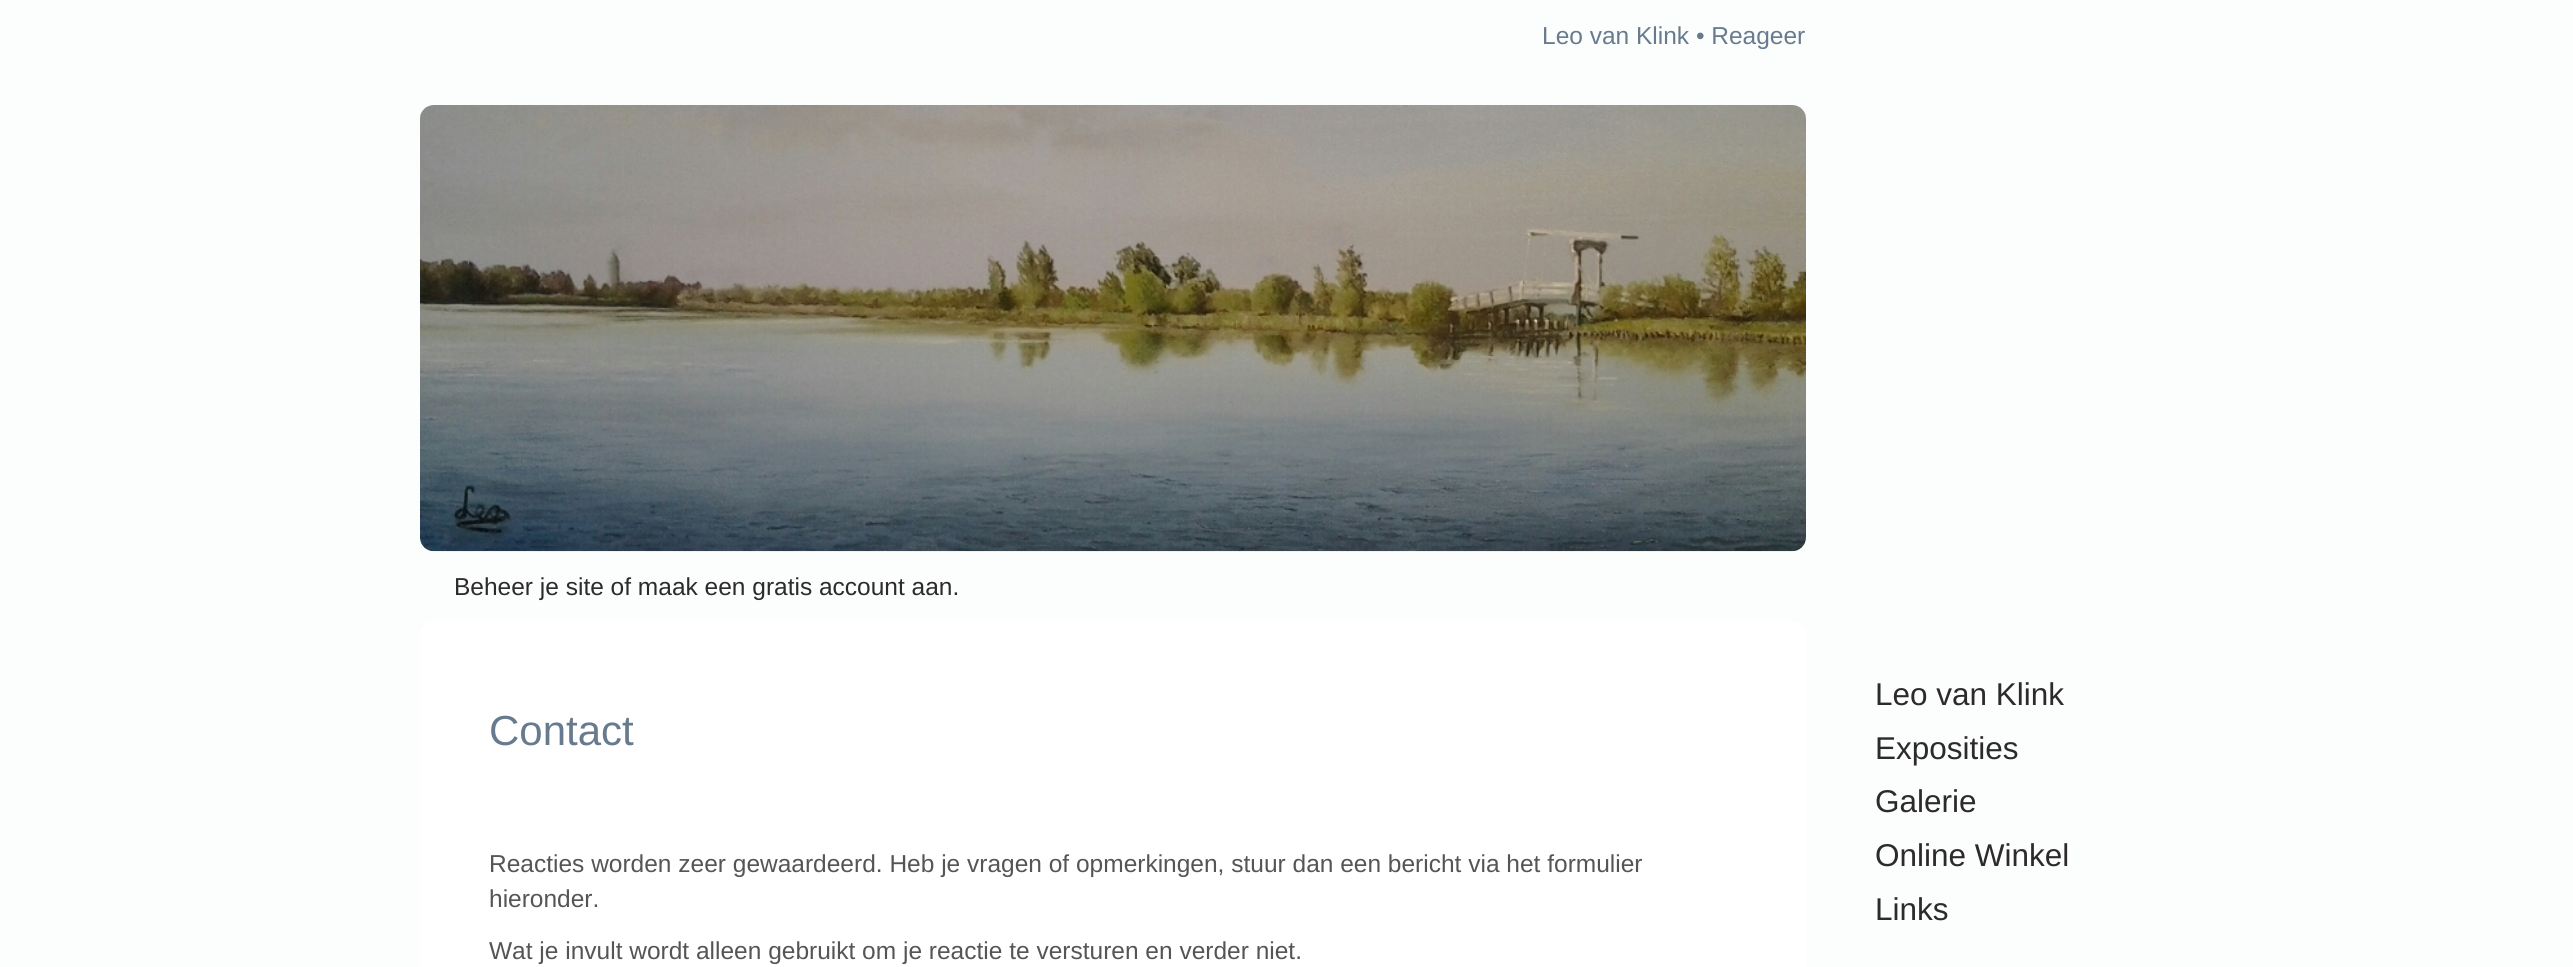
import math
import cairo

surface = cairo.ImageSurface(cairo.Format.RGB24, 2573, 967)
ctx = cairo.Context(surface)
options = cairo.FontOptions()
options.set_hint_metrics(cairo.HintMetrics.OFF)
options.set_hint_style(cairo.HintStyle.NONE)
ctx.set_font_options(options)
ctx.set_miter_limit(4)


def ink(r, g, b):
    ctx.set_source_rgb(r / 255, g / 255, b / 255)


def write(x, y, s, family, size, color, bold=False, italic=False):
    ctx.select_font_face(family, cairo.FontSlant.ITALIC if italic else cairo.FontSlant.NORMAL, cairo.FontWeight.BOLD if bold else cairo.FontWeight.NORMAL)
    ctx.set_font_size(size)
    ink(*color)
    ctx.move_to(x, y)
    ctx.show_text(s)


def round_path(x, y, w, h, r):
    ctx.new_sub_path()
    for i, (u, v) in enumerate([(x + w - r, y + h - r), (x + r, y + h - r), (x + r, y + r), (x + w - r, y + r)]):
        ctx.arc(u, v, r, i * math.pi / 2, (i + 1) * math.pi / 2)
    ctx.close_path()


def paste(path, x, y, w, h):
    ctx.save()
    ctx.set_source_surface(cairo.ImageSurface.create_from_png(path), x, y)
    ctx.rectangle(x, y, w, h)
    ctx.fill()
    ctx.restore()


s1 = dict(family="Liberation Sans", size=24.5, color=(104, 122, 141))
s2 = dict(family="Liberation Sans", size=24.5, color=(45, 42, 42))
s3 = dict(family="Liberation Sans", size=42, color=(104, 122, 141))
s4 = dict(family="Liberation Sans", size=24.5, color=(85, 85, 85))
s5 = dict(family="Liberation Sans", size=31.5, color=(45, 42, 42))

ink(251, 254, 253)
ctx.paint()
write(1542, 44, "Leo van Klink • Reageer", **s1)
paste("pic1.png", 420, 105, 1386, 447)
write(454, 595, "Beheer je site of maak een gratis account aan.", **s2)
ink(255, 255, 255)
round_path(420, 621, 1386, 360, 14)
ctx.fill()
write(489, 745, "Contact", **s3)
write(489, 872, "Reacties worden zeer gewaardeerd. Heb je vragen of opmerkingen, stuur dan een bericht via het formulier", **s4)
write(489, 907, "hieronder.", **s4)
write(489, 959, "Wat je invult wordt alleen gebruikt om je reactie te versturen en verder niet.", **s4)
write(1875, 705, "Leo van Klink", **s5)
write(1875, 759, "Exposities", **s5)
write(1875, 812, "Galerie", **s5)
write(1875, 866, "Online Winkel", **s5)
write(1875, 920, "Links", **s5)
surface.write_to_png("screenshot.png")
